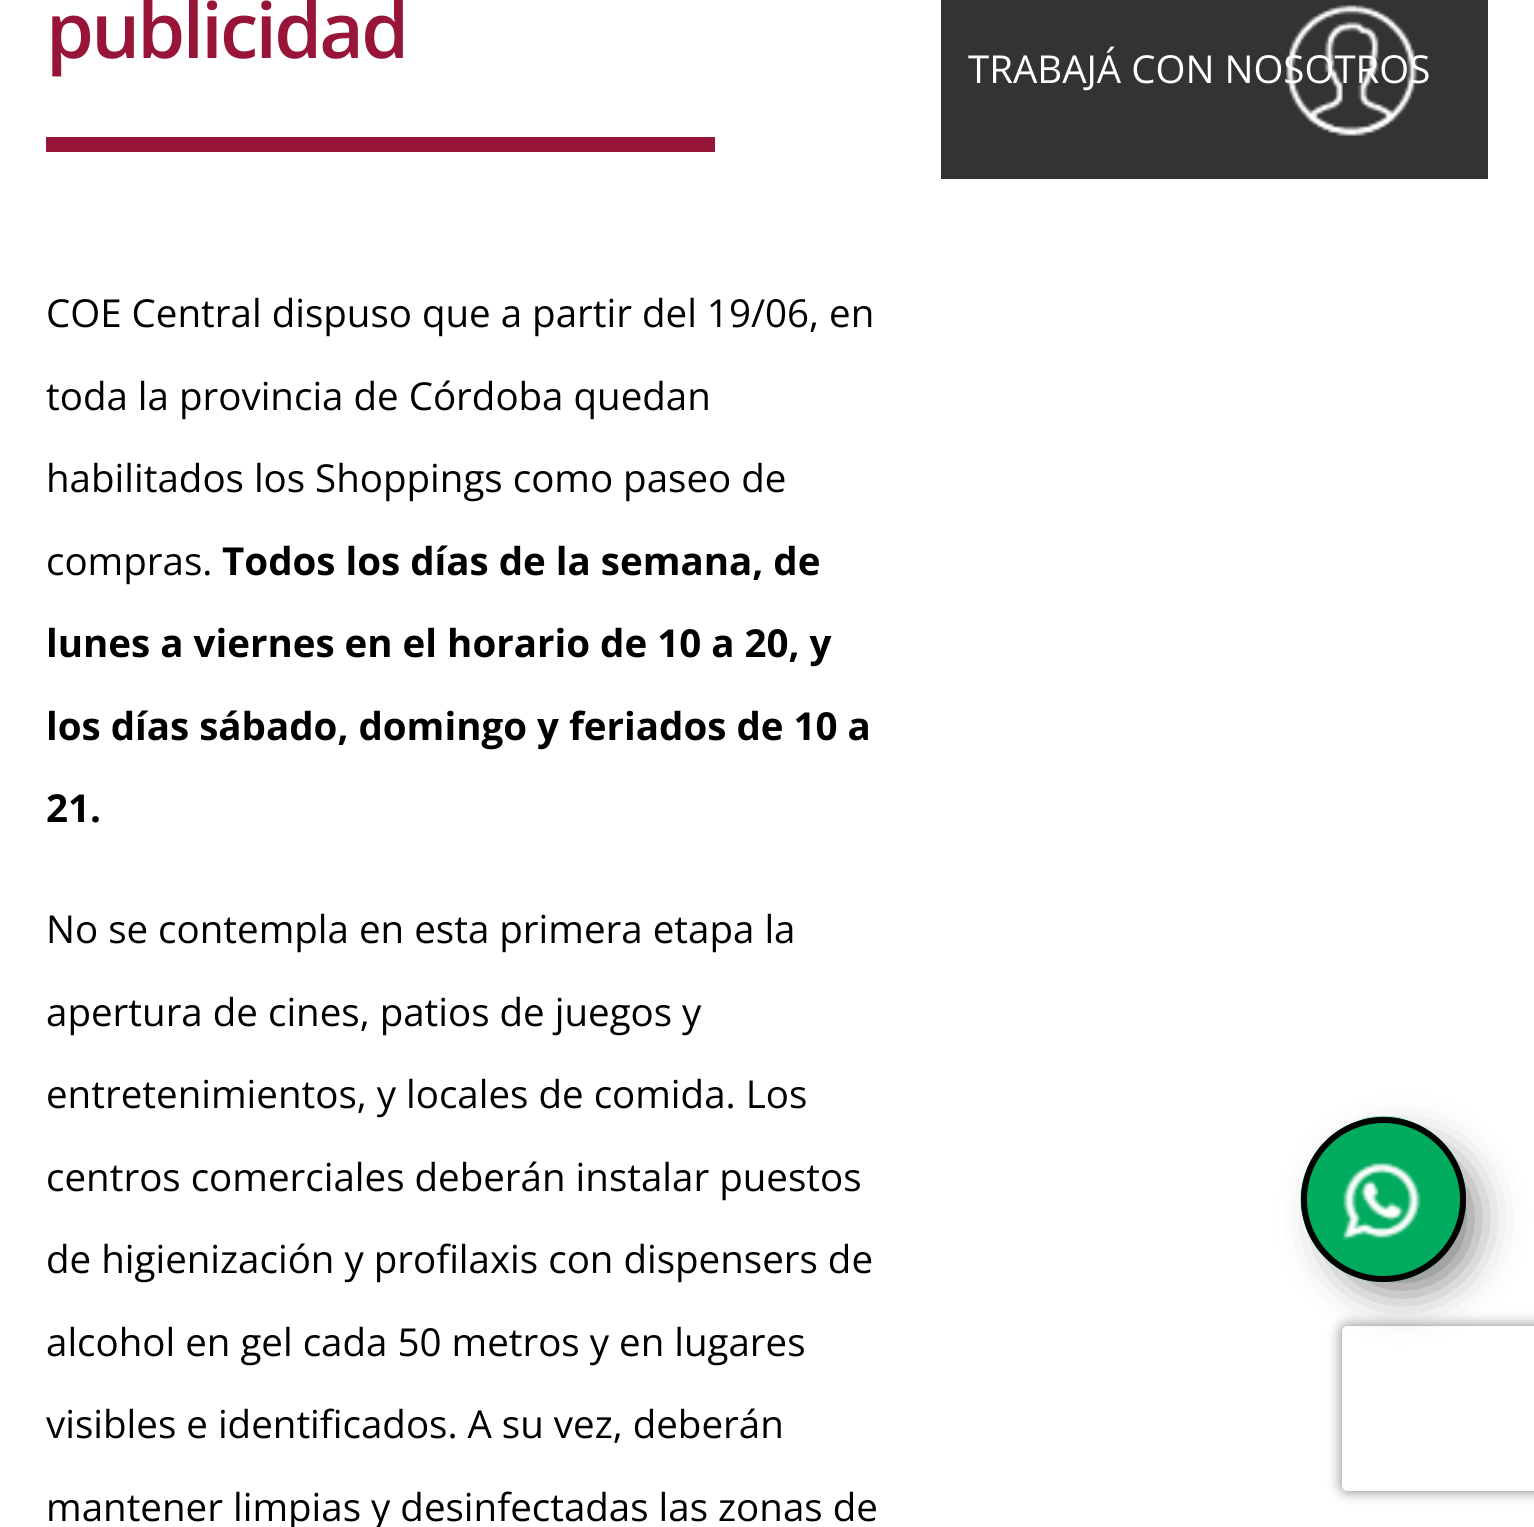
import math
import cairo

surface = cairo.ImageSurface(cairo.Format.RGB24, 1534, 1527)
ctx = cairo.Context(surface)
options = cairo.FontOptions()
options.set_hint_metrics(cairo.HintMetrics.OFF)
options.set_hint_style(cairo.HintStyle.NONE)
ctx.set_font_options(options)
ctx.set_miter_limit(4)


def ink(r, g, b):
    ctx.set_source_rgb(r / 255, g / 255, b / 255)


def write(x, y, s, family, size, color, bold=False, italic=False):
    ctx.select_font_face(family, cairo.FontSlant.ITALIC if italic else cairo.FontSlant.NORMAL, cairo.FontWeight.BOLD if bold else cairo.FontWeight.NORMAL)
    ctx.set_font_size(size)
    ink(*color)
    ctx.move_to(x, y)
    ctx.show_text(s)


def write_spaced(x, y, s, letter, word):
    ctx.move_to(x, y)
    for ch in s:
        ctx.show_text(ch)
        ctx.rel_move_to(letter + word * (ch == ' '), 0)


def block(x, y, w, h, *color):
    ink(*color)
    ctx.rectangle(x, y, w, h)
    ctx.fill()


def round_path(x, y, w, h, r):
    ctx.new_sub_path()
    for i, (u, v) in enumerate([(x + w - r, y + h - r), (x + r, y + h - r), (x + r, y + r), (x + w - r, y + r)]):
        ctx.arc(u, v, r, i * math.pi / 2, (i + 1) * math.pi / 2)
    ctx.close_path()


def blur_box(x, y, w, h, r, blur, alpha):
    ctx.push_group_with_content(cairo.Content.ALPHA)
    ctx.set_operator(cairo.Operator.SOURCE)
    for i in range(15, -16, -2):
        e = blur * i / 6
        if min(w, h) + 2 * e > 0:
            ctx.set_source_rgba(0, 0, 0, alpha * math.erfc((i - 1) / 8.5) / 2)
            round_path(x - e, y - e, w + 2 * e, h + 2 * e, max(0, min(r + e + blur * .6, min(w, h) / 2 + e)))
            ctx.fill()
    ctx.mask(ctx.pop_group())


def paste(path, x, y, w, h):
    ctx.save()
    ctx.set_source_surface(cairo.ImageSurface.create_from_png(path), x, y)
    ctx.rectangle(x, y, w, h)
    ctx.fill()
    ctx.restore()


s1 = dict(family="Open Sans", size=38.5, color=(0, 0, 0))
s2 = dict(family="Open Sans", size=38.5, color=(0, 0, 0), bold=True)
s3 = dict(family="Open Sans", size=38.5, color=(255, 255, 255))

ink(255, 255, 255)
ctx.paint()
block(46, 137, 669, 15, 152, 22, 58)
ctx.select_font_face("Open Sans SemiBold")
ctx.set_font_size(77)
ink(152, 21, 57)
write_spaced(46, 58, "publicidad", -2.75, 0)
write(46, 327, "COE Central dispuso que a partir del 19/06, en", **s1)
write(46, 410, "toda la provincia de Córdoba quedan", **s1)
write(46, 492, "habilitados los Shoppings como paseo de", **s1)
write(46, 575, "compras.", **s1)
write(222, 575, "Todos los días de la semana, de", **s2)
write(46, 657, "lunes a viernes en el horario de 10 a 20, y", **s2)
write(46, 740, "los días sábado, domingo y feriados de 10 a", **s2)
write(46, 822, "21.", **s2)
write(46, 943, "No se contempla en esta primera etapa la", **s1)
write(46, 1026, "apertura de cines, patios de juegos y", **s1)
write(46, 1108, "entretenimientos, y locales de comida. Los", **s1)
write(46, 1191, "centros comerciales deberán instalar puestos", **s1)
write(46, 1273, "de higienización y profilaxis con dispensers de", **s1)
write(46, 1356, "alcohol en gel cada 50 metros y en lugares", **s1)
write(46, 1438, "visibles e identificados. A su vez, deberán", **s1)
write(46, 1521, "mantener limpias y desinfectadas las zonas de", **s1)
block(941, 0, 547, 179, 51, 51, 51)
paste("pic1.png", 1286, 5, 132, 131)
write(968, 83, "TRABAJÁ CON NOSOTROS", **s3)
ink(0, 0, 0)
blur_box(1334, 1150, 137, 137, 68.5, 23.5, 0.57)
ink(0, 171, 93)
ctx.arc(1383.5, 1199.5, 82.5, 0, 2 * math.pi)
ctx.fill()
paste("pic2.png", 1300, 1116, 166, 166)
ctx.arc(1383.5, 1199.5, 79.5, 0, 2 * math.pi)
ink(0, 0, 0)
ctx.set_line_width(6)
ctx.stroke()
ctx.save()
ctx.set_fill_rule(cairo.FillRule.EVEN_ODD)
ctx.new_path()
ctx.move_to(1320, 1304)
ctx.line_to(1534, 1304)
ctx.line_to(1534, 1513)
ctx.line_to(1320, 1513)
ctx.close_path()
ctx.move_to(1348, 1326)
ctx.line_to(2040, 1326)
ctx.curve_to(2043.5, 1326, 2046, 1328.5, 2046, 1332)
ctx.line_to(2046, 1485)
ctx.curve_to(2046, 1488.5, 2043.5, 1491, 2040, 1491)
ctx.line_to(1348, 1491)
ctx.curve_to(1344.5, 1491, 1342, 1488.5, 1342, 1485)
ctx.line_to(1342, 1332)
ctx.curve_to(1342, 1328.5, 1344.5, 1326, 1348, 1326)
ctx.close_path()
ctx.clip()
ink(128, 128, 128)
blur_box(1342, 1326, 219, 165, 6, 7, 1)
ctx.restore()
surface.write_to_png("screenshot.png")
